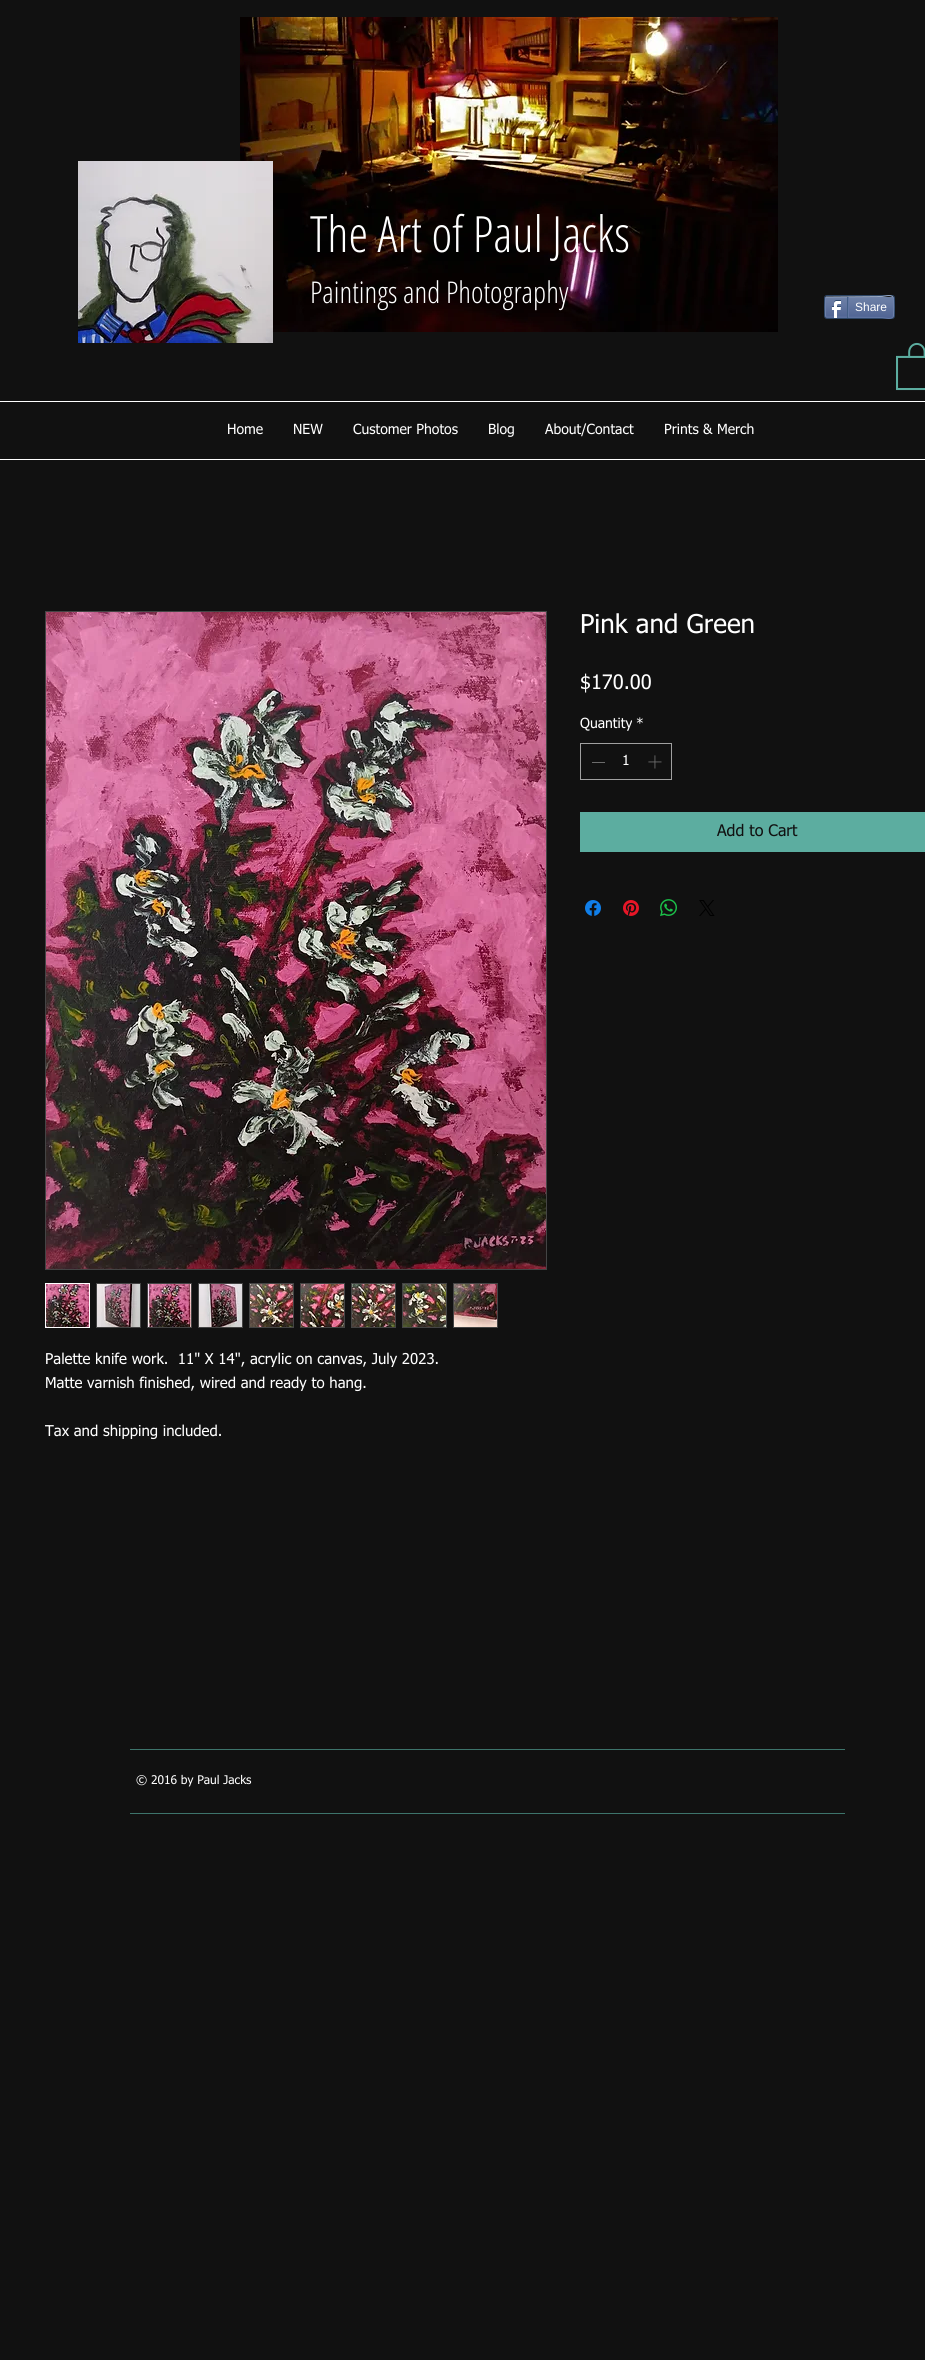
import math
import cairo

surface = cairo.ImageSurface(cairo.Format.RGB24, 925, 2360)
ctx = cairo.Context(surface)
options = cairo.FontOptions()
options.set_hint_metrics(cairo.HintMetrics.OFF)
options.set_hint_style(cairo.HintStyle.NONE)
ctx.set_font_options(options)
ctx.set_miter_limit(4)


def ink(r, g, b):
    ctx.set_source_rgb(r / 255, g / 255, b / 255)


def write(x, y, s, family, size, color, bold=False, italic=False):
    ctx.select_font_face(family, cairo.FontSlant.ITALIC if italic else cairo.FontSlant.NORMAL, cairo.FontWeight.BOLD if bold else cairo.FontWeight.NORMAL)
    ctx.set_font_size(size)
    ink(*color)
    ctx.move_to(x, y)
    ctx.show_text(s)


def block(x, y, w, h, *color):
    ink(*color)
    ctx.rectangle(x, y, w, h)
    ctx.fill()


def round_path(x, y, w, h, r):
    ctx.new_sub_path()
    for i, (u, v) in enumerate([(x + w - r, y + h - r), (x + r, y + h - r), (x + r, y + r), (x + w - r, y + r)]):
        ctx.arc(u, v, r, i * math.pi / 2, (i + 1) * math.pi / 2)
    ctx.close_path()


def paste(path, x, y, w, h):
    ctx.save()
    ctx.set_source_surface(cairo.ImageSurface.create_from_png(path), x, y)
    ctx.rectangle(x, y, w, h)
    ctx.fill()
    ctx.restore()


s1 = dict(family="Open Sans Condensed Light", size=50, color=(255, 255, 255))
s2 = dict(family="Open Sans Condensed Light", size=30, color=(255, 255, 255))
s3 = dict(family="Liberation Sans", size=12, color=(255, 255, 255))
s4 = dict(family="tahoma", size=14, color=(255, 255, 255))
s5 = dict(family="tahoma", size=26, color=(255, 255, 255))
s6 = dict(family="tahoma", size=20, color=(255, 255, 255))
s7 = dict(family="tahoma", size=16, color=(17, 17, 17))
s8 = dict(family="tahoma", size=15, color=(255, 255, 255))
s9 = dict(family="tahoma", size=12, color=(255, 255, 255))

ink(17, 17, 17)
ctx.paint()
paste("pic2.png", 240, 17, 538, 315)
paste("pic1.png", 78, 161, 195, 182)
write(310, 252, "The Art of Paul Jacks", **s1)
write(310, 303, "Paintings and Photography", **s2)
round_path(824.5, 295.5, 70, 23, 2.5)
ink(45, 69, 101)
ctx.set_line_width(1)
ctx.stroke()
paste("pic3.png", 825, 297, 69, 21)
ctx.new_path()
ctx.move_to(826, 297)
ctx.line_to(881, 296.5)
ctx.curve_to(885, 296.5, 890, 294, 893, 297)
ink(154, 171, 198)
ctx.stroke()
ctx.new_path()
ctx.move_to(893, 297)
ctx.curve_to(894, 297.5, 894, 316.5, 893, 317)
ink(111, 131, 173)
ctx.stroke()
ctx.new_path()
ctx.move_to(893, 317)
ctx.curve_to(890, 320, 885, 317.5, 881, 317.5)
ctx.line_to(826, 317)
ink(97, 118, 163)
ctx.stroke()
ctx.new_path()
ctx.move_to(826, 317)
ctx.curve_to(825, 316.5, 825, 297.5, 826, 297)
ink(111, 131, 173)
ctx.stroke()
paste("pic4.png", 831, 300, 10, 18)
block(847, 297, 1, 21, 66, 94, 133)
write(855, 311, "Share", **s3)
block(848, 297, 1, 20, 97, 118, 163)
paste("pic5.png", 896, 342, 29, 49)
block(0, 401, 925, 1, 255, 255, 255)
block(0, 459, 925, 1, 255, 255, 255)
write(227, 434, "Home", **s4)
write(293, 434, "NEW", **s4)
write(353, 434, "Customer Photos", **s4)
write(488, 434, "Blog", **s4)
write(545, 434, "About/Contact", **s4)
write(664, 434, "Prints & Merch", **s4)
write(580, 633, "Pink and Green", **s5)
write(580, 689, "$170.00", **s6)
write(580, 728, "Quantity", **s4)
write(636, 728, "*", **s4)
ctx.rectangle(580.5, 743.5, 91, 36)
ink(160, 160, 160)
ctx.stroke()
block(592, 762, 13, 1, 108, 108, 108)
write(622, 765, "1", **s4)
paste("pic6.png", 648, 755, 14, 14)
block(580, 812, 345, 40, 92, 173, 160)
write(717, 836, "Add to Cart", **s7)
paste("pic7.png", 585, 900, 16, 16)
paste("pic8.png", 623, 900, 16, 16)
paste("pic9.png", 660, 899, 17, 17)
paste("pic10.png", 699, 900, 16, 16)
ctx.rectangle(45.5, 611.5, 501, 658)
ink(68, 68, 68)
ctx.stroke()
paste("pic11.png", 46, 612, 500, 657)
ctx.rectangle(45.5, 1283.5, 44, 44)
ink(255, 255, 255)
ctx.stroke()
paste("pic12.png", 46, 1284, 43, 43)
ctx.rectangle(96.5, 1283.5, 44, 44)
ink(68, 68, 68)
ctx.stroke()
paste("pic13.png", 97, 1284, 43, 43)
ctx.rectangle(147.5, 1283.5, 44, 44)
ctx.stroke()
paste("pic14.png", 148, 1284, 43, 43)
ctx.rectangle(198.5, 1283.5, 44, 44)
ctx.stroke()
paste("pic15.png", 199, 1284, 43, 43)
ctx.rectangle(249.5, 1283.5, 44, 44)
ctx.stroke()
paste("pic16.png", 250, 1284, 43, 43)
ctx.rectangle(300.5, 1283.5, 44, 44)
ctx.stroke()
paste("pic17.png", 301, 1284, 43, 43)
ctx.rectangle(351.5, 1283.5, 44, 44)
ctx.stroke()
paste("pic18.png", 352, 1284, 43, 43)
ctx.rectangle(402.5, 1283.5, 44, 44)
ctx.stroke()
paste("pic19.png", 403, 1284, 43, 43)
ctx.rectangle(453.5, 1283.5, 44, 44)
ctx.stroke()
paste("pic20.png", 454, 1284, 43, 43)
write(45, 1364, "Palette knife work.  11\" X 14\", acrylic on canvas, July 2023.", **s8)
write(45, 1388, "Matte varnish finished, wired and ready to hang.", **s8)
write(45, 1436, "Tax and shipping included.", **s8)
block(130, 1749, 715, 1, 61, 116, 107)
write(136, 1784, "© 2016 by Paul Jacks", **s9)
block(130, 1813, 715, 1, 61, 116, 107)
surface.write_to_png("screenshot.png")
